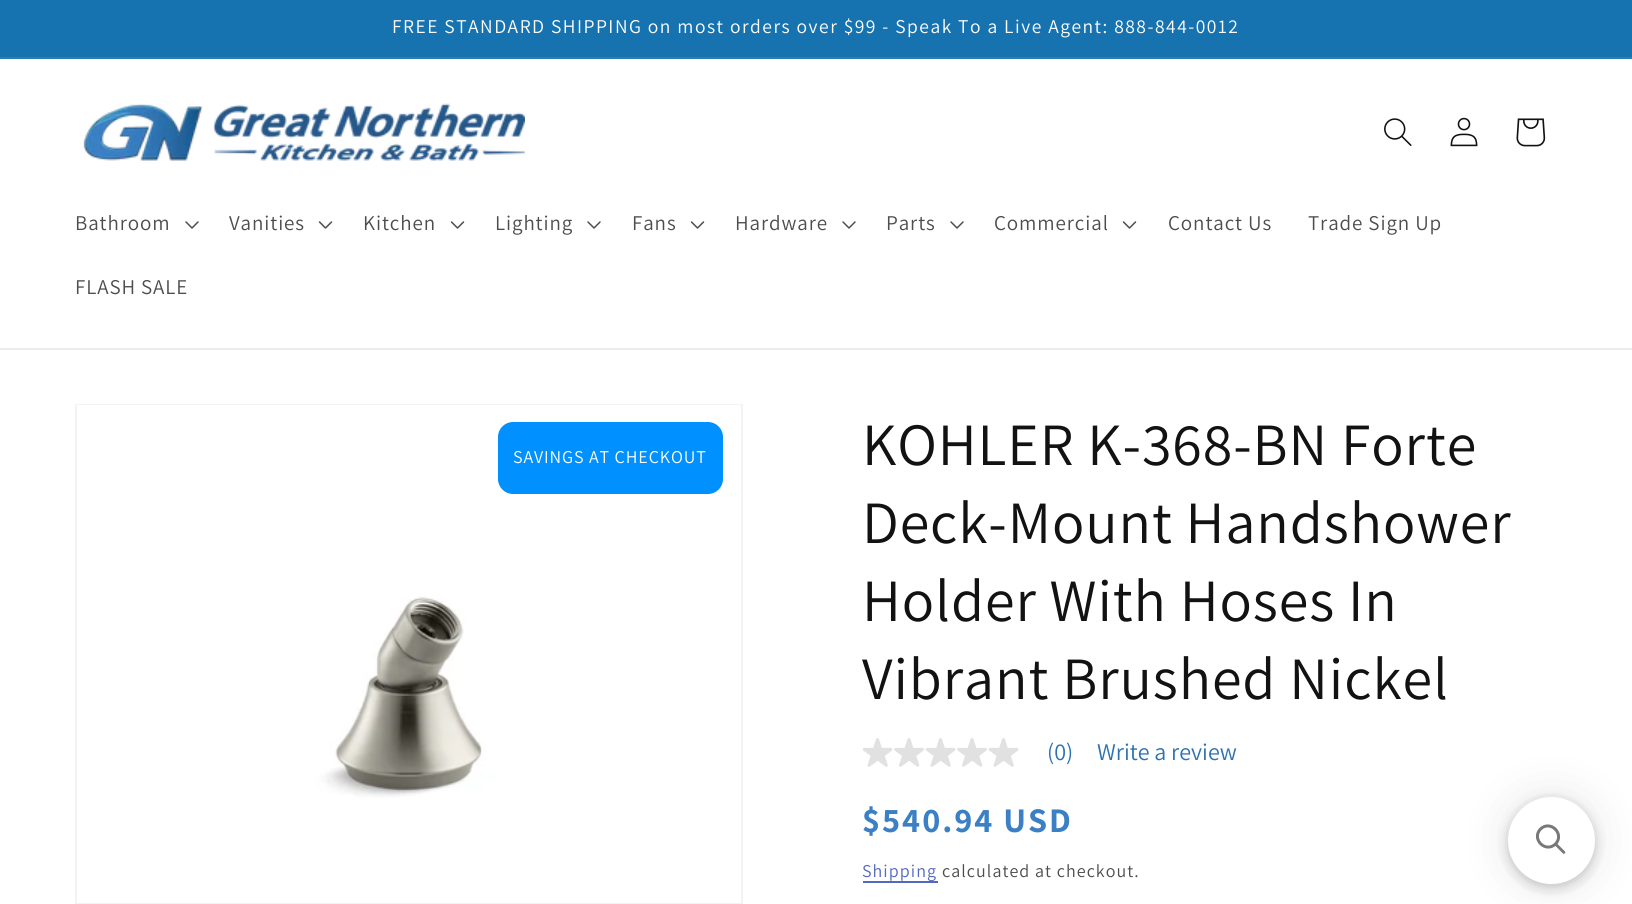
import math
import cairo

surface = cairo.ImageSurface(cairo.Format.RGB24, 1632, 904)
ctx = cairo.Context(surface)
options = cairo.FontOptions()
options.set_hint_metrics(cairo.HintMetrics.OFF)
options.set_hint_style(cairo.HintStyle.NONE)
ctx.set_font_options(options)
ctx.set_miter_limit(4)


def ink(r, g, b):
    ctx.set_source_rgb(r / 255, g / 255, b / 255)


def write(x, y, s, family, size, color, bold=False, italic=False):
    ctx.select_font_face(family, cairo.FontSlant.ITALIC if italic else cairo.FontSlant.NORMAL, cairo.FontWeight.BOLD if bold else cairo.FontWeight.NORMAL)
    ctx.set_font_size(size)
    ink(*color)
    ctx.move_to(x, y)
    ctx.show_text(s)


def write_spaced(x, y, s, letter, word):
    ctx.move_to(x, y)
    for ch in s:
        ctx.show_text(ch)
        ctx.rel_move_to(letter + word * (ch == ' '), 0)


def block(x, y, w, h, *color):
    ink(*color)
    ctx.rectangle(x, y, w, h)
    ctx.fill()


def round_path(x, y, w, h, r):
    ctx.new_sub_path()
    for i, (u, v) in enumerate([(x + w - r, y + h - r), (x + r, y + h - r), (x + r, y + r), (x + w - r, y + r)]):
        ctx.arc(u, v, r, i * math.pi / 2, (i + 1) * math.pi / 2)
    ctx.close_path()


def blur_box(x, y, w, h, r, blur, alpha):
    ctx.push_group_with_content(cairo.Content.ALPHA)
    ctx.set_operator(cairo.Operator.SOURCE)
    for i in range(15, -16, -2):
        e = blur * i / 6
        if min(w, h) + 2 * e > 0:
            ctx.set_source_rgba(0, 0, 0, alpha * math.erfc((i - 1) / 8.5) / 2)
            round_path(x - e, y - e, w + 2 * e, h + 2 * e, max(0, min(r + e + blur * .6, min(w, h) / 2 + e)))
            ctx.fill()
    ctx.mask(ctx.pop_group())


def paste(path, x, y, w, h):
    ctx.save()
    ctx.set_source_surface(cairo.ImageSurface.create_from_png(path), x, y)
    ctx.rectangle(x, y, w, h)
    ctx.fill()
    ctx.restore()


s1 = dict(family="Assistant", size=24, color=(44, 114, 176))

ink(255, 255, 255)
ctx.paint()
block(0, 0, 1632, 57, 23, 115, 176)
block(0, 57, 1632, 2, 42, 126, 182)
ctx.select_font_face("Assistant")
ctx.set_font_size(19.5)
ink(255, 255, 255)
write_spaced(392, 33, "FREE STANDARD SHIPPING on most orders over $99 - Speak To a Live Agent: 888-844-0012", 1.5, 0)
block(0, 348, 1632, 2, 236, 236, 236)
paste("pic1.png", 83, 103, 442, 58)
paste("pic2.png", 1384, 118, 28, 28)
paste("pic3.png", 1450, 117, 28, 30)
paste("pic4.png", 1516, 118, 30, 29)
ctx.set_font_size(21)
ink(77, 77, 77)
write_spaced(75, 230, "Bathroom", 0.9, 0)
paste("pic5.png", 185, 221, 14, 8)
write_spaced(229, 230, "Vanities", 0.9, 0)
paste("pic6.png", 318, 221, 15, 8)
write_spaced(363, 230, "Kitchen", 0.9, 0)
paste("pic6.png", 450, 221, 15, 8)
write_spaced(495, 230, "Lighting", 0.9, 0)
paste("pic5.png", 587, 221, 14, 8)
write_spaced(632, 230, "Fans", 0.9, 0)
paste("pic6.png", 690, 221, 15, 8)
write_spaced(735, 230, "Hardware", 0.9, 0)
paste("pic5.png", 842, 221, 14, 8)
write_spaced(886, 230, "Parts", 0.9, 0)
paste("pic5.png", 950, 221, 14, 8)
write_spaced(994, 230, "Commercial", 0.9, 0)
paste("pic6.png", 1122, 221, 15, 8)
write_spaced(1168, 230, "Contact Us", 0.9, 0)
write_spaced(1308, 230, "Trade Sign Up", 0.9, 0)
write_spaced(75, 294, "FLASH SALE", 0.9, 0)
ctx.rectangle(76, 405, 666, 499)
ink(243, 243, 243)
ctx.stroke()
paste("pic7.png", 77, 405, 664, 393)
ink(0, 144, 255)
round_path(498, 422, 225, 72, 15)
ctx.fill()
ctx.set_font_size(18)
ink(255, 255, 255)
write_spaced(513, 463, "SAVINGS AT CHECKOUT", 0.9, 0)
ctx.set_font_size(60)
ink(18, 18, 18)
write_spaced(862, 465, "KOHLER K-368-BN Forte", 0.9, 0)
write_spaced(862, 543, "Deck-Mount Handshower", 0.9, 0)
write_spaced(862, 621, "Holder With Hoses In", 0.9, 0)
write_spaced(862, 699, "Vibrant Brushed Nickel", 0.9, 0)
paste("pic8.png", 863, 738, 30, 29)
paste("pic9.png", 894, 738, 30, 29)
paste("pic10.png", 925, 738, 31, 29)
paste("pic9.png", 957, 738, 30, 29)
paste("pic10.png", 988, 738, 31, 29)
write(1047, 760, "(0)", **s1)
write(1097, 760, "Write a review", **s1)
ctx.select_font_face("Assistant", cairo.FontSlant.NORMAL, cairo.FontWeight.BOLD)
ctx.set_font_size(34.5)
ink(59, 128, 196)
write_spaced(862, 832, "$540.94 USD", 2, 0)
block(863, 881, 75, 2, 82, 105, 191)
ctx.select_font_face("Assistant")
ctx.set_font_size(18)
write_spaced(862, 877, "Shipping", 1.05, 0)
ink(77, 77, 77)
write_spaced(942, 877, "calculated at checkout.", 1.05, 0)
ink(0, 0, 0)
blur_box(1508, 803, 87, 87, 43.5, 6, 0.05)
blur_box(1508, 800, 87, 87, 43.5, 6, 0.15)
blur_box(1508, 797, 87, 87, 43.5, 22.5, 0.1)
ink(255, 255, 255)
ctx.arc(1551.5, 840.5, 43.5, 0, 2 * math.pi)
ctx.fill()
ctx.new_path()
ctx.move_to(1540.5, 829)
ctx.curve_to(1550.5, 819.5, 1565, 834, 1555.5, 844)
ctx.curve_to(1545.5, 853.5, 1531, 839, 1540.5, 829)
ctx.close_path()
ink(120, 120, 120)
ctx.set_line_width(3)
ctx.stroke()
ctx.new_path()
ctx.move_to(1554.5, 845)
ctx.line_to(1556.5, 843)
ctx.line_to(1565, 851.5)
ctx.curve_to(1566, 853, 1564, 854.5, 1563, 853.5)
ctx.close_path()
ctx.fill()
surface.write_to_png("screenshot.png")
